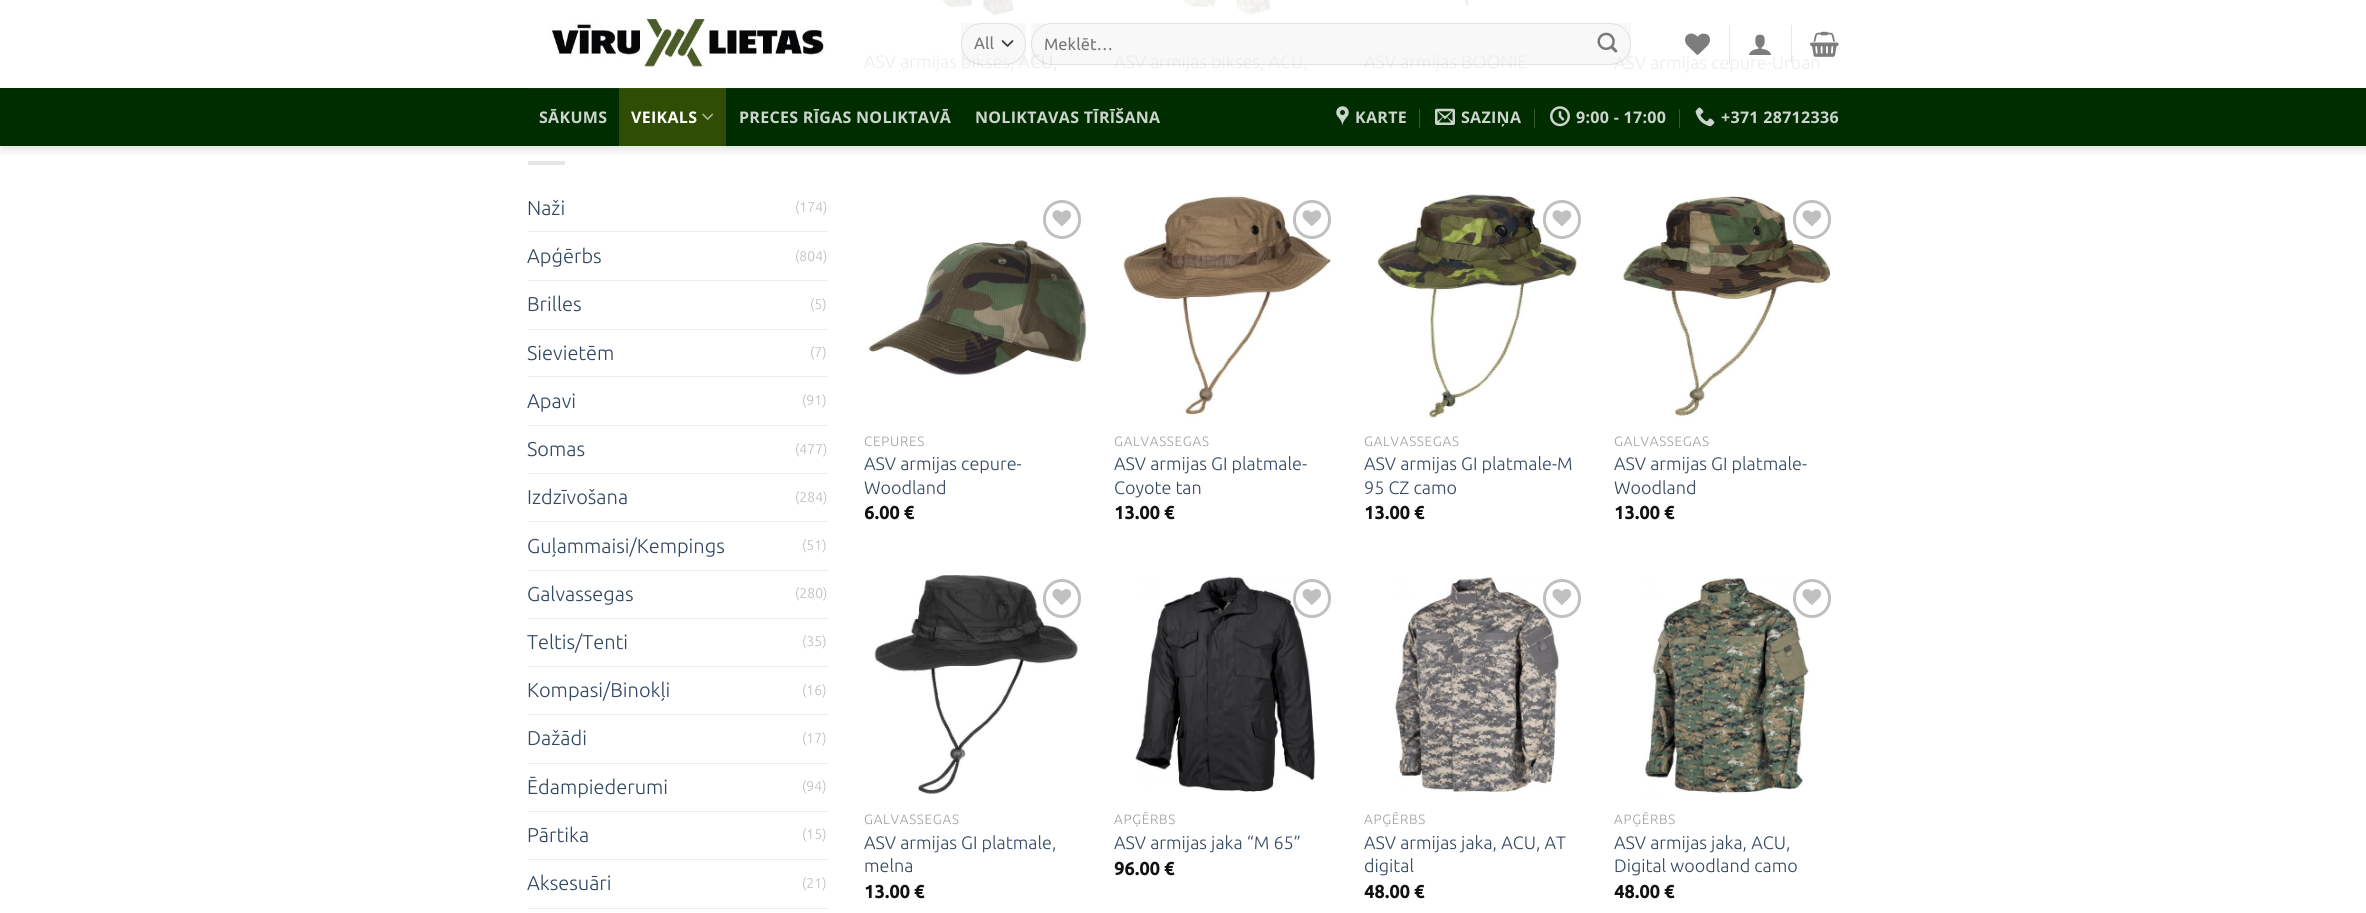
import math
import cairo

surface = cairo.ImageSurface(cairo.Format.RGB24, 2366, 913)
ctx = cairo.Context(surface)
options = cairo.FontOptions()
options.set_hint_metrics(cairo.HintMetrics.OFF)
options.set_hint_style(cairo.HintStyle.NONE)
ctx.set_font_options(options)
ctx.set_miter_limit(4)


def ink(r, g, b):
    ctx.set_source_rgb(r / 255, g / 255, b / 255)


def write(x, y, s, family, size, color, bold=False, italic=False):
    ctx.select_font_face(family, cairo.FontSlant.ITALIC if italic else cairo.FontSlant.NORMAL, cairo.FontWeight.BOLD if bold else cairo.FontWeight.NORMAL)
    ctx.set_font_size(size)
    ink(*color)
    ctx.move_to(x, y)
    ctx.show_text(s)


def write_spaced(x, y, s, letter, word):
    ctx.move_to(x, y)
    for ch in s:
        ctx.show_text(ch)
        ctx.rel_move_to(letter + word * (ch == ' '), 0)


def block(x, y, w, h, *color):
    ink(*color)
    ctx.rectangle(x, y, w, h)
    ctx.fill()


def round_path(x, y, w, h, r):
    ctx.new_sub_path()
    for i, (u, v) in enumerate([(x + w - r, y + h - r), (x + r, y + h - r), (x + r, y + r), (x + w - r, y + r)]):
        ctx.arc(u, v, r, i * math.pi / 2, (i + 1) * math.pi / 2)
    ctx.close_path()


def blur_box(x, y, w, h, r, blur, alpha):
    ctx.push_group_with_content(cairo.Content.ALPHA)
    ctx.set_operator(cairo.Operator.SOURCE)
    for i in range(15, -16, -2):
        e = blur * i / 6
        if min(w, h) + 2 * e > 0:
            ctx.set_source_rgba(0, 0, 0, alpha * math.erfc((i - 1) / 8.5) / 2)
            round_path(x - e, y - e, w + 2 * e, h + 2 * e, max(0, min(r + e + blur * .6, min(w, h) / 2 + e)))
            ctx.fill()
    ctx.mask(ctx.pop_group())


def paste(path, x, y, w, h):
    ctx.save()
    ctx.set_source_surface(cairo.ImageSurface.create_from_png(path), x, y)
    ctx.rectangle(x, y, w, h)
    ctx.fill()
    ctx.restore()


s1 = dict(family="Ubuntu Light", size=18, color=(235, 237, 239))
s2 = dict(family="Ubuntu", size=16.5, color=(119, 119, 119))
s3 = dict(family="Ubuntu Light", size=20, color=(51, 72, 98))
s4 = dict(family="Ubuntu Light", size=14, color=(187, 187, 187))
s5 = dict(family="Ubuntu Light", size=18, color=(51, 72, 98))
s6 = dict(family="Ubuntu", size=18, color=(17, 17, 17), bold=True)

ink(255, 255, 255)
ctx.paint()
block(528, 161, 37, 4, 230, 230, 230)
paste("pic11.png", 940, 0, 76, 16)
paste("pic12.png", 1183, 0, 88, 15)
paste("pic13.png", 1465, 0, 5, 7)
ctx.save()
ctx.rectangle(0, 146, 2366, 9)
ctx.clip()
ink(0, 0, 0)
blur_box(1, 1, 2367, 147, 0, 6, 0.15)
ctx.restore()
paste("pic1.png", 534, 15, 292, 55)
ctx.set_source_rgba(0, 0, 0, 0.03)
ctx.rectangle(961, 23, 65, 42)
ctx.fill()
ctx.new_path()
ctx.move_to(1002.5, 41)
ctx.line_to(1007.5, 46)
ctx.line_to(1012.5, 41)
ink(51, 51, 51)
ctx.set_line_width(1.7)
ctx.set_line_cap(cairo.LineCap.ROUND)
ctx.set_line_join(cairo.LineJoin.ROUND)
ctx.stroke()
write(864, 68, "ASV armijas bikses, ACU,", **s1)
round_path(961.5, 23.5, 64, 41, 20.5)
ctx.set_source_rgba(0, 0, 0, 0.09)
ctx.set_line_width(1)
ctx.set_line_cap(cairo.LineCap.BUTT)
ctx.set_line_join(cairo.LineJoin.MITER)
ctx.stroke()
write(974, 49, "All", **s2)
ctx.set_source_rgba(0, 0, 0, 0.03)
ctx.rectangle(1031, 23, 600, 42)
ctx.fill()
write(1114, 68, "ASV armijas bikses, ACU,", **s1)
write(1364, 68, "ASV armijas BOONIE", **s1)
write(1614, 69, "ASV armijas cepure-Urban", **s1)
round_path(1031.5, 23.5, 599, 41, 20.5)
ctx.set_source_rgba(0, 0, 0, 0.09)
ctx.stroke()
write(1044, 50, "Meklēt…", **s2)
paste("pic2.png", 1597, 32, 21, 21)
paste("pic3.png", 1685, 33, 25, 22)
block(1729, 25, 1, 38, 230, 230, 230)
paste("pic4.png", 1749, 34, 22, 21)
block(1791, 25, 1, 38, 230, 230, 230)
paste("pic5.png", 1810, 31, 29, 26)
block(0, 88, 2366, 58, 0, 45, 0)
block(619, 88, 107, 58, 48, 77, 4)
ctx.set_source_rgba(0.467, 0.467, 0.467, 0.1)
ctx.rectangle(528, 88, 1312, 1)
ctx.fill()
ctx.select_font_face("Open Sans", cairo.FontSlant.NORMAL, cairo.FontWeight.BOLD)
ctx.set_font_size(16)
ink(204, 213, 204)
write_spaced(539, 123, "SĀKUMS", 0.3, 0)
ink(255, 255, 255)
write_spaced(631, 123, "VEIKALS", 0.3, 0)
paste("pic6.png", 702, 113, 12, 7)
ink(204, 213, 204)
write_spaced(739, 123, "PRECES RĪGAS NOLIKTAVĀ", 0.3, 0)
write_spaced(975, 123, "NOLIKTAVAS TĪRĪŠANA", 0.3, 0)
paste("pic7.png", 1336, 106, 13, 20)
write_spaced(1355, 123, "KARTE", 0.3, 0)
block(1419, 109, 1, 19, 51, 87, 51)
paste("pic8.png", 1435, 108, 20, 17)
ink(204, 213, 204)
write_spaced(1461, 123, "SAZIŅA", 0.3, 0)
block(1534, 109, 1, 19, 51, 87, 51)
paste("pic9.png", 1550, 106, 20, 21)
ink(204, 213, 204)
write_spaced(1576, 123, "9:00 - 17:00", 0.3, 0)
block(1679, 109, 1, 19, 51, 87, 51)
paste("pic10.png", 1695, 107, 20, 20)
ink(204, 213, 204)
write_spaced(1721, 123, "+371 28712336", 0.3, 0)
write(527, 215, "Naži", **s3)
write(795, 212, "(174)", **s4)
block(528, 231, 300, 1, 236, 236, 236)
write(527, 263, "Apģērbs", **s3)
write(795, 261, "(804)", **s4)
block(528, 280, 300, 1, 236, 236, 236)
write(527, 311, "Brilles", **s3)
write(810, 309, "(5)", **s4)
block(528, 329, 300, 1, 236, 236, 236)
write(527, 360, "Sievietēm", **s3)
write(810, 357, "(7)", **s4)
block(528, 376, 300, 1, 236, 236, 236)
write(527, 408, "Apavi", **s3)
write(802, 405, "(91)", **s4)
block(528, 425, 300, 1, 236, 236, 236)
write(527, 456, "Somas", **s3)
write(795, 454, "(477)", **s4)
block(528, 473, 300, 1, 236, 236, 236)
write(527, 504, "Izdzīvošana", **s3)
write(795, 502, "(284)", **s4)
block(528, 521, 300, 1, 236, 236, 236)
write(527, 553, "Guļammaisi/Kempings", **s3)
write(802, 550, "(51)", **s4)
block(528, 570, 300, 1, 236, 236, 236)
write(527, 601, "Galvassegas", **s3)
write(795, 598, "(280)", **s4)
block(528, 618, 300, 1, 236, 236, 236)
write(527, 649, "Teltis/Tenti", **s3)
write(802, 646, "(35)", **s4)
block(528, 666, 300, 1, 236, 236, 236)
write(527, 697, "Kompasi/Binokļi", **s3)
write(802, 695, "(16)", **s4)
block(528, 714, 300, 1, 236, 236, 236)
write(527, 745, "Dažādi", **s3)
write(802, 743, "(17)", **s4)
block(528, 763, 300, 1, 236, 236, 236)
write(527, 794, "Ēdampiederumi", **s3)
write(802, 791, "(94)", **s4)
block(528, 811, 300, 1, 236, 236, 236)
write(527, 842, "Pārtika", **s3)
write(802, 839, "(15)", **s4)
block(528, 859, 300, 1, 236, 236, 236)
write(527, 890, "Aksesuāri", **s3)
write(802, 888, "(21)", **s4)
block(528, 908, 300, 1, 236, 236, 236)
round_path(1044.5, 201.5, 35, 36, 17.5)
ink(192, 192, 192)
ctx.set_line_width(3)
ctx.stroke()
paste("pic14.png", 1052, 210, 20, 17)
paste("pic15.png", 868, 240, 219, 136)
ctx.set_font_size(13.5)
ink(160, 160, 160)
write_spaced(864, 446, "CEPURES", 0.75, 0)
write(864, 470, "ASV armijas cepure-", **s5)
write(864, 494, "Woodland", **s5)
write(864, 519, "6.00 €", **s6)
paste("pic16.png", 1123, 195, 208, 222)
round_path(1294.5, 201.5, 35, 36, 17.5)
ink(192, 192, 192)
ctx.stroke()
paste("pic14.png", 1302, 210, 20, 17)
ctx.select_font_face("Ubuntu Light")
ctx.set_font_size(13.5)
ink(160, 160, 160)
write_spaced(1114, 446, "GALVASSEGAS", 0.75, 0)
write(1114, 470, "ASV armijas GI platmale-", **s5)
write(1114, 494, "Coyote tan", **s5)
write(1114, 519, "13.00 €", **s6)
paste("pic17.png", 1377, 194, 200, 224)
round_path(1544.5, 201.5, 35, 36, 17.5)
ink(192, 192, 192)
ctx.stroke()
paste("pic14.png", 1552, 210, 20, 17)
ctx.select_font_face("Ubuntu Light")
ctx.set_font_size(13.5)
ink(160, 160, 160)
write_spaced(1364, 446, "GALVASSEGAS", 0.75, 0)
write(1364, 470, "ASV armijas GI platmale-M", **s5)
write(1364, 494, "95 CZ camo", **s5)
write(1364, 519, "13.00 €", **s6)
paste("pic18.png", 1621, 195, 210, 222)
round_path(1794.5, 201.5, 35, 36, 17.5)
ink(192, 192, 192)
ctx.stroke()
paste("pic14.png", 1802, 210, 20, 17)
ctx.select_font_face("Ubuntu Light")
ctx.set_font_size(13.5)
ink(160, 160, 160)
write_spaced(1614, 446, "GALVASSEGAS", 0.75, 0)
write(1614, 470, "ASV armijas GI platmale-", **s5)
write(1614, 494, "Woodland", **s5)
write(1614, 519, "13.00 €", **s6)
paste("pic19.png", 874, 575, 204, 219)
round_path(1044.5, 580.5, 35, 36, 17.5)
ink(192, 192, 192)
ctx.stroke()
paste("pic20.png", 1052, 589, 20, 16)
ctx.select_font_face("Ubuntu Light")
ctx.set_font_size(13.5)
ink(160, 160, 160)
write_spaced(864, 824, "GALVASSEGAS", 0.75, 0)
write(864, 849, "ASV armijas GI platmale,", **s5)
write(864, 872, "melna", **s5)
write(864, 898, "13.00 €", **s6)
paste("pic21.png", 1135, 576, 180, 216)
round_path(1294.5, 580.5, 35, 36, 17.5)
ink(192, 192, 192)
ctx.stroke()
paste("pic22.png", 1302, 589, 20, 16)
ctx.select_font_face("Ubuntu Light")
ctx.set_font_size(13.5)
ink(160, 160, 160)
write_spaced(1114, 824, "APĢĒRBS", 0.75, 0)
write(1114, 849, "ASV armijas jaka “M 65”", **s5)
write(1114, 875, "96.00 €", **s6)
paste("pic23.png", 1394, 577, 166, 216)
round_path(1544.5, 580.5, 35, 36, 17.5)
ink(192, 192, 192)
ctx.stroke()
paste("pic22.png", 1552, 589, 20, 16)
ctx.select_font_face("Ubuntu Light")
ctx.set_font_size(13.5)
ink(160, 160, 160)
write_spaced(1364, 824, "APĢĒRBS", 0.75, 0)
write(1364, 849, "ASV armijas jaka, ACU, AT", **s5)
write(1364, 872, "digital", **s5)
write(1364, 898, "48.00 €", **s6)
paste("pic24.png", 1644, 578, 165, 217)
round_path(1794.5, 580.5, 35, 36, 17.5)
ink(192, 192, 192)
ctx.stroke()
paste("pic22.png", 1802, 589, 20, 16)
ctx.select_font_face("Ubuntu Light")
ctx.set_font_size(13.5)
ink(160, 160, 160)
write_spaced(1614, 824, "APĢĒRBS", 0.75, 0)
write(1614, 849, "ASV armijas jaka, ACU,", **s5)
write(1614, 872, "Digital woodland camo", **s5)
write(1614, 898, "48.00 €", **s6)
surface.write_to_png("screenshot.png")
